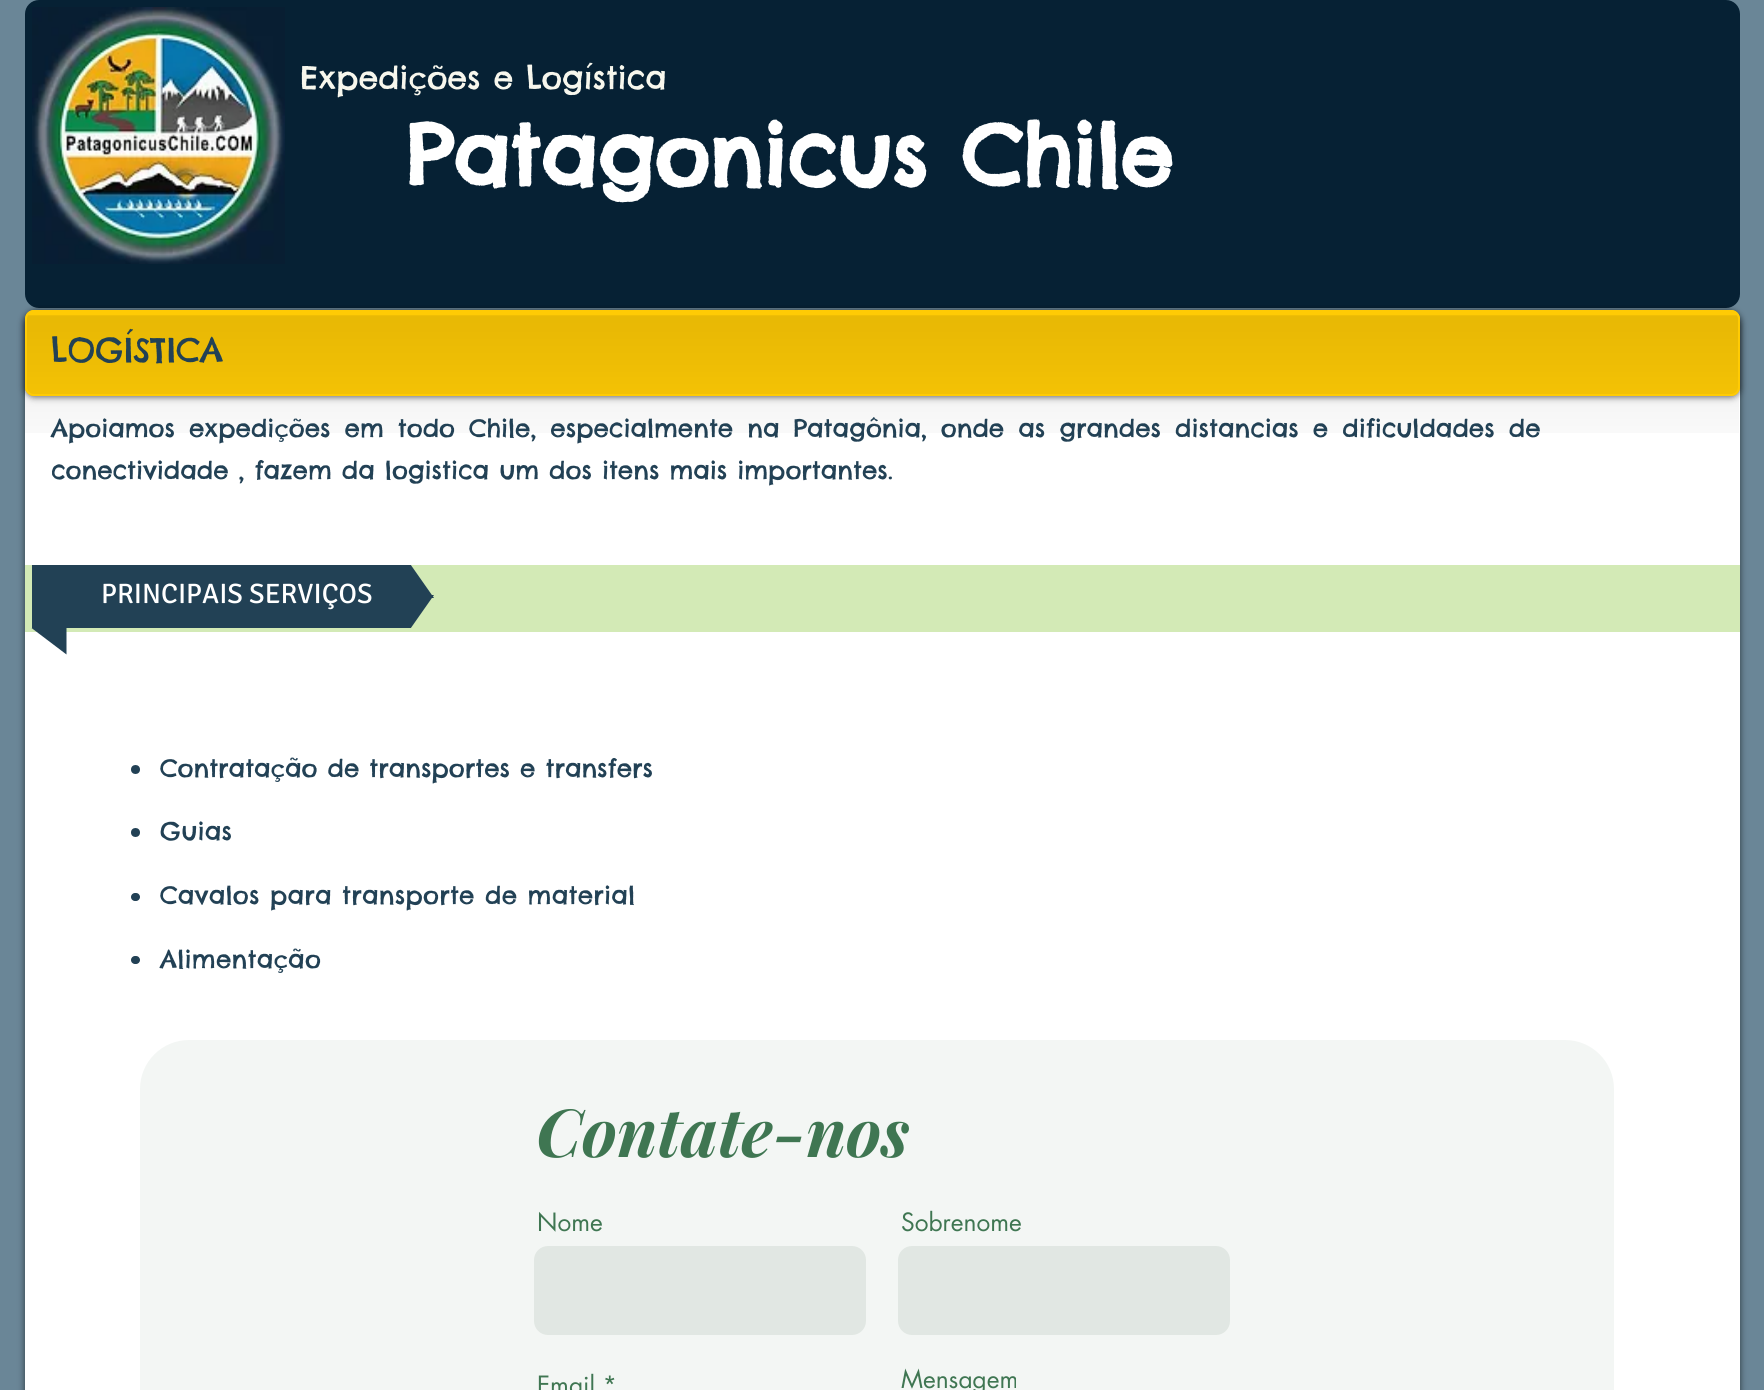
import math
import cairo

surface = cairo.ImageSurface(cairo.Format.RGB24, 1764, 1390)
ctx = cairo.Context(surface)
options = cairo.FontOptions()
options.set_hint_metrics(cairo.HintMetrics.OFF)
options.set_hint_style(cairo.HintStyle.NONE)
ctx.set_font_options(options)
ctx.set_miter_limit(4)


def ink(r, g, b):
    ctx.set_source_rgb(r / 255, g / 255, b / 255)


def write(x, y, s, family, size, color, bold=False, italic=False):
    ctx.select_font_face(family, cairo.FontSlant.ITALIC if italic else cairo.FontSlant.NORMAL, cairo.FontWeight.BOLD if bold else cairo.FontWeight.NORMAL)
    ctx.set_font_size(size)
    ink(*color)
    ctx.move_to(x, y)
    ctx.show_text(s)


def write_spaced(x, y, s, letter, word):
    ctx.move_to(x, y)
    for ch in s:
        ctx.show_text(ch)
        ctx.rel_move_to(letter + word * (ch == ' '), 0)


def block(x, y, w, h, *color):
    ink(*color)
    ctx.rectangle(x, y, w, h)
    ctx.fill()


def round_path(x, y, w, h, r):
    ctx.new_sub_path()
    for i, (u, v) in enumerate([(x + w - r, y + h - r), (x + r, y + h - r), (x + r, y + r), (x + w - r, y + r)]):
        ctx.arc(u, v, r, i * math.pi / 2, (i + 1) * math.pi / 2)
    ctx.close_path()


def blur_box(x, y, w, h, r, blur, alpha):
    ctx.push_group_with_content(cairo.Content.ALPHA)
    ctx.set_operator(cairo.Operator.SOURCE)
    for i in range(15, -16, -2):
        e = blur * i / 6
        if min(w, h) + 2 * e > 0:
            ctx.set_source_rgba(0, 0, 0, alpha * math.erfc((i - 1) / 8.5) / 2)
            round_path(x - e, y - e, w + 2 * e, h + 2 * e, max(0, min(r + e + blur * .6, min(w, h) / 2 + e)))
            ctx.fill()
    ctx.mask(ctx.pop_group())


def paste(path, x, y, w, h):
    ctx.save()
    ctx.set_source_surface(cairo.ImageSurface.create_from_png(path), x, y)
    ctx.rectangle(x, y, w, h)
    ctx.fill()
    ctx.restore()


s1 = dict(family="Chelsea Market", size=31.5, color=(247, 247, 237))
s2 = dict(family="Chelsea Market", size=84, color=(255, 255, 255), bold=True)
s3 = dict(family="Chelsea Market", size=33.25, color=(34, 65, 85))
s4 = dict(family="Chelsea Market", size=24.5, color=(34, 65, 85))
s5 = dict(family="Signika", size=28, color=(255, 255, 255))
s6 = dict(family="Playfair Display", size=66.5, color=(63, 118, 82), bold=True, italic=True)
s7 = dict(family="futura", size=24.5, color=(63, 118, 82))

ink(106, 134, 151)
ctx.paint()
ink(6, 33, 52)
round_path(25, 0, 1715, 308, 14)
ctx.fill()
paste("pic1.png", 32, 7, 253, 257)
write(300, 89, "Expedições e Logística", **s1)
write(406, 186, "Patagonicus Chile", **s2)
ink(0, 0, 0)
blur_box(25, 312, 1715, 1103, 14, 3.5, 0.6)
ink(255, 255, 255)
round_path(25, 310, 1715, 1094, 14)
ctx.fill()
paste("pic2.png", 25, 318, 1714, 115)
ink(0, 0, 0)
blur_box(25, 312, 1715, 85, 9, 3.5, 0.6)
ink(255, 203, 5)
round_path(25, 310, 1715, 86, 9)
ctx.fill()
paste("pic3.png", 25, 315, 1713, 80)
round_path(26, 311, 1713, 84, 8)
ctx.stroke()
write(51, 362, "LOGÍSTICA", **s3)
ctx.set_font_size(24.5)
write_spaced(51, 437, "Apoiamos expedições em todo Chile, especialmente na Patagônia, onde as grandes distancias e dificuldades de", 0, 4)
write(51, 479, "conectividade , fazem da logistica um dos itens mais importantes.", **s4)
block(25, 565, 1715, 67, 211, 234, 182)
ctx.save()
ctx.rectangle(32, 565, 402, 63)
ctx.clip()
ink(34, 65, 85)
ctx.new_path()
ctx.move_to(-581, 595)
ctx.line_to(434, 595)
ctx.line_to(-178, 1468)
ctx.line_to(-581, 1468)
ctx.close_path()
ctx.fill()
ctx.new_path()
ctx.move_to(434, 598)
ctx.line_to(-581, 598)
ctx.line_to(-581, -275)
ctx.line_to(-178, -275)
ctx.close_path()
ctx.fill()
ctx.restore()
write(101, 603, "PRINCIPAIS SERVIÇOS", **s5)
ink(34, 65, 85)
ctx.new_path()
ctx.move_to(66.5, 628)
ctx.line_to(66.5, 654.5)
ctx.line_to(31.5, 628)
ctx.close_path()
ctx.fill()
ctx.arc(135.5, 769.5, 4.5, 0, 2 * math.pi)
ctx.fill()
write(160, 777, "Contratação de transportes e transfers", **s4)
ctx.new_path()
ctx.arc(135.5, 832.5, 4.5, 0, 2 * math.pi)
ctx.fill()
write_spaced(160, 840, "Guias", 0.25, 0)
round_path(131, 893, 9, 8, 4)
ctx.fill()
write_spaced(160, 904, "Cavalos para transporte de material", 0.25, 0)
round_path(131, 956, 9, 8, 4)
ctx.fill()
write_spaced(160, 968, "Alimentação", 0.25, 0)
ink(243, 246, 244)
round_path(140, 1040, 1474, 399, 49)
ctx.fill()
write(536, 1157, "Contate-nos", **s6)
write(537, 1231, "Nome", **s7)
ink(225, 231, 227)
round_path(534, 1246, 332, 89, 14)
ctx.fill()
write(901, 1231, "Sobrenome", **s7)
ink(225, 231, 227)
round_path(898, 1246, 332, 89, 14)
ctx.fill()
write(537, 1394, "Email *", **s7)
write(901, 1388, "Mensagem", **s7)
surface.write_to_png("screenshot.png")
